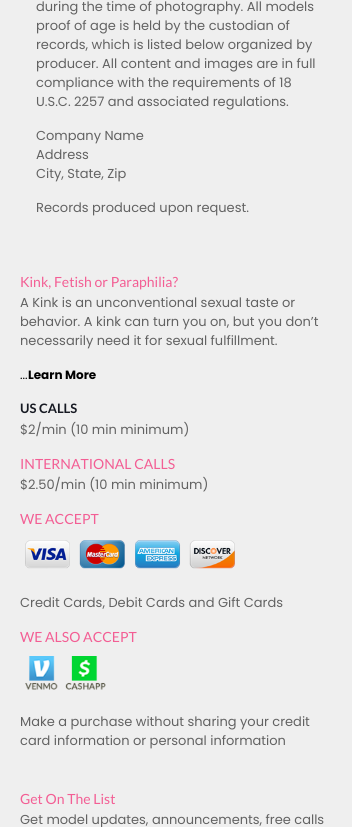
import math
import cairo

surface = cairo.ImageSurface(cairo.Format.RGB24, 352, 827)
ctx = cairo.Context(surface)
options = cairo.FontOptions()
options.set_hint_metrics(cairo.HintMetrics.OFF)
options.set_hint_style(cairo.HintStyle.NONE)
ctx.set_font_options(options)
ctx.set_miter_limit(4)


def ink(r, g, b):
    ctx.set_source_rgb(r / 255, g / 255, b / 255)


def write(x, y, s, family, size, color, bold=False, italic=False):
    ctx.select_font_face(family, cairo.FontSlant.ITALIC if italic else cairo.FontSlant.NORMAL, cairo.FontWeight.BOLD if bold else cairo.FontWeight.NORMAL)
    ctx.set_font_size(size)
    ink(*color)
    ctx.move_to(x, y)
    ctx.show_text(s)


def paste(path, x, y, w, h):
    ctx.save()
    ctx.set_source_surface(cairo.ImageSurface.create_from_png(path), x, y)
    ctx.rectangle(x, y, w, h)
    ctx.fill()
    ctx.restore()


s1 = dict(family="Poppins", size=13, color=(98, 98, 98))
s2 = dict(family="Lato", size=14, color=(243, 94, 148))
s3 = dict(family="Poppins", size=12, color=(0, 0, 0))
s4 = dict(family="Poppins", size=12, color=(0, 0, 0), bold=True)
s5 = dict(family="Lato", size=13, color=(22, 25, 34), bold=True)

ink(239, 239, 239)
ctx.paint()
write(36, 11, "during the time of photography. All models", **s1)
write(36, 30, "proof of age is held by the custodian of", **s1)
write(36, 49, "records, which is listed below organized by", **s1)
write(36, 68, "producer. All content and images are in full", **s1)
write(36, 87, "compliance with the requirements of 18", **s1)
write(36, 106, "U.S.C. 2257 and associated regulations.", **s1)
write(36, 140, "Company Name", **s1)
write(36, 159, "Address", **s1)
write(36, 178, "City, State, Zip", **s1)
write(36, 212, "Records produced upon request.", **s1)
write(20, 287, "Kink, Fetish or Paraphilia?", **s2)
write(20, 307, "A Kink is an unconventional sexual taste or", **s1)
write(20, 326, "behavior. A kink can turn you on, but you don’t", **s1)
write(20, 345, "necessarily need it for sexual fulfillment.", **s1)
write(20, 379, "...", **s3)
write(28, 379, "Learn More", **s4)
write(20, 413, "US CALLS", **s5)
write(20, 434, "$2/min (10 min minimum)", **s1)
write(20, 469, "INTERNATIONAL CALLS", **s2)
write(20, 489, "$2.50/min (10 min minimum)", **s1)
write(20, 524, "WE ACCEPT", **s2)
paste("pic1.png", 25, 540, 210, 29)
write(20, 607, "Credit Cards, Debit Cards and Gift Cards", **s1)
write(20, 642, "WE ALSO ACCEPT", **s2)
paste("pic2.png", 25, 656, 81, 34)
write(20, 726, "Make a purchase without sharing your credit", **s1)
write(20, 745, "card information or personal information", **s1)
write(20, 804, "Get On The List", **s2)
write(20, 824, "Get model updates, announcements, free calls", **s1)
surface.write_to_png("screenshot.png")
